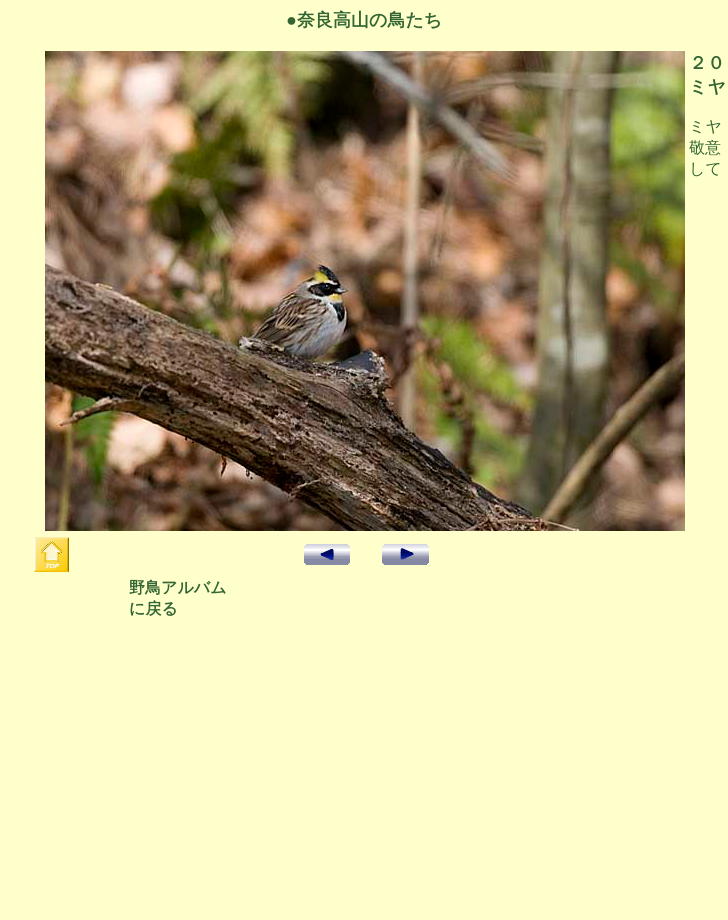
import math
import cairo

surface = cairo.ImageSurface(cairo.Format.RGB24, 728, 920)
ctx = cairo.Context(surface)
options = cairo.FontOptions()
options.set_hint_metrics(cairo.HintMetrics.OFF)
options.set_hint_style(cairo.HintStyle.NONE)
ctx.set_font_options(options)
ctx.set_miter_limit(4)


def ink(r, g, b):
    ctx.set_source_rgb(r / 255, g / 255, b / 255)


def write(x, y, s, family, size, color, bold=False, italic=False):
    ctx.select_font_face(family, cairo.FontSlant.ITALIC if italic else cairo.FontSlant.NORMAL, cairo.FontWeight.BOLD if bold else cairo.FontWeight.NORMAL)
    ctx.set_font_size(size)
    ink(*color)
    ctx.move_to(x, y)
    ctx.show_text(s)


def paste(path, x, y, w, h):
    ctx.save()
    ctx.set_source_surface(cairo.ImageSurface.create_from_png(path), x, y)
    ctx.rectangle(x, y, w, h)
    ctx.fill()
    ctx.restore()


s1 = dict(family="Liberation Serif", size=18, color=(51, 102, 51))
s2 = dict(family="WenQuanYi Zen Hei", size=18, color=(51, 102, 51), bold=True)
s3 = dict(family="WenQuanYi Zen Hei Medium", size=16, color=(51, 102, 51))
s4 = dict(family="WenQuanYi Zen Hei", size=16, color=(51, 102, 51), bold=True)

ink(255, 255, 204)
ctx.paint()
write(286, 26, "●", **s1)
write(297, 26, "奈良高山の鳥たち", **s2)
paste("pic1.png", 45, 51, 640, 480)
write(689, 69, "２０", **s2)
write(689, 93, "ミヤ", **s2)
write(689, 132, "ミヤ", **s3)
write(689, 153, "敬意", **s3)
write(689, 174, "して", **s3)
paste("pic2.png", 34, 537, 35, 35)
paste("pic3.png", 304, 544, 46, 21)
paste("pic4.png", 382, 544, 47, 21)
write(129, 593, "野鳥アルバム", **s4)
write(129, 614, "に戻る", **s4)
surface.write_to_png("screenshot.png")
